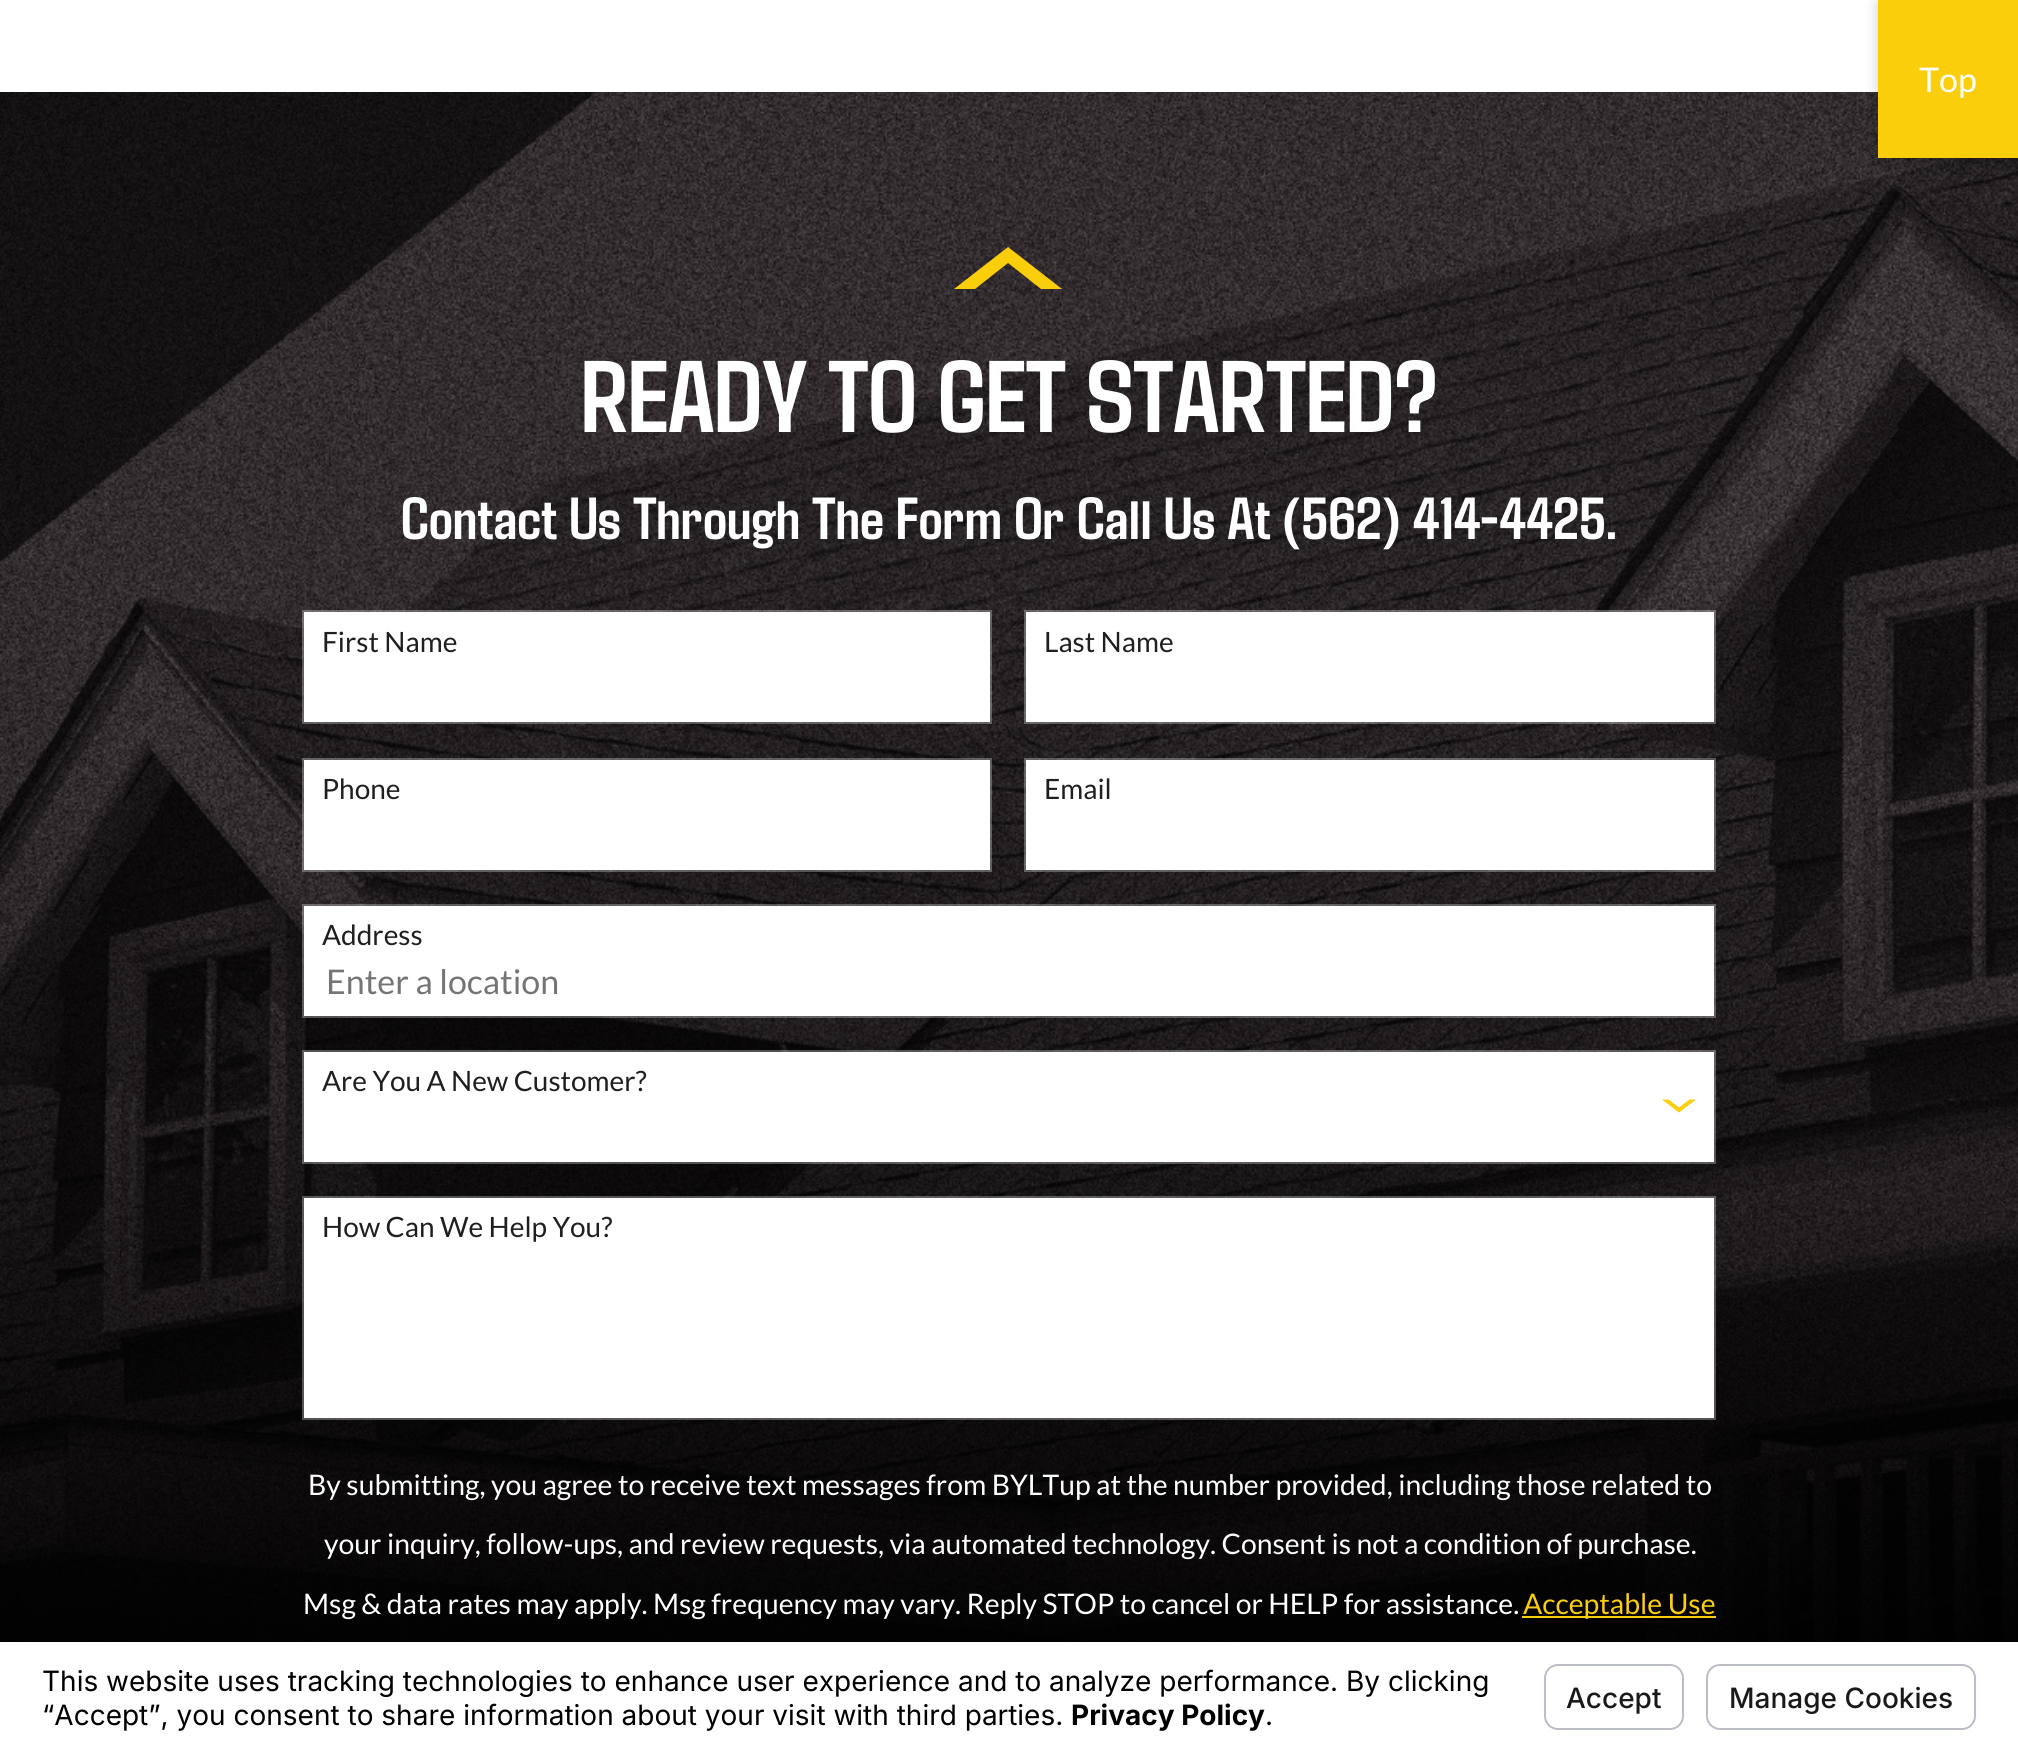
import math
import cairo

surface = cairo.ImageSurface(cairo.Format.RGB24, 2018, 1751)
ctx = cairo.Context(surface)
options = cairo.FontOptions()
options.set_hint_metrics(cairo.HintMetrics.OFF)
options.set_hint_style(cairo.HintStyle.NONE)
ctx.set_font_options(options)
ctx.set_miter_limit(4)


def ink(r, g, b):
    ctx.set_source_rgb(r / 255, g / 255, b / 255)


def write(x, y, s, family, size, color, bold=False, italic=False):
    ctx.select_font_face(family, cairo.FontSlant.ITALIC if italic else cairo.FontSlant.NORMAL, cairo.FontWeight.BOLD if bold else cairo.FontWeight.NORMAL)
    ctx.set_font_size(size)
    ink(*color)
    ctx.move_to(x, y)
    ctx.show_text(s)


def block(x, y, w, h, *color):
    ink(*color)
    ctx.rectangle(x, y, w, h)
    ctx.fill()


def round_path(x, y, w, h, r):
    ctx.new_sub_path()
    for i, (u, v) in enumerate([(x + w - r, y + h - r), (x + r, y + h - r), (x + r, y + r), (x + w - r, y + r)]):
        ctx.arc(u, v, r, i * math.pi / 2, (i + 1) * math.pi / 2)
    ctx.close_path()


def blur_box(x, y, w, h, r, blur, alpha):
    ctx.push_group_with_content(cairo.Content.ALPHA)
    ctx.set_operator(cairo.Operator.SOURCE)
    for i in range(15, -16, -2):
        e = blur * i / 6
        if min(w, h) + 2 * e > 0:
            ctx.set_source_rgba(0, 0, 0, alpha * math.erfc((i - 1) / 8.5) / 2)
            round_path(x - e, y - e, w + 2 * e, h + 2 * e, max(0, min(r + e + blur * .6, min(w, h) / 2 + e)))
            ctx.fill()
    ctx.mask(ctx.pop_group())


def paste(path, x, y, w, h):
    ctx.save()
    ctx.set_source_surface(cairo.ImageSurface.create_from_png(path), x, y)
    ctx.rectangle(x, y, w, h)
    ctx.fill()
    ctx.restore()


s1 = dict(family="Lato", size=34, color=(255, 255, 255))
s2 = dict(family="Agdasima", size=102, color=(255, 255, 255), bold=True)
s3 = dict(family="Agdasima", size=59.5, color=(255, 255, 255), bold=True)
s4 = dict(family="Lato", size=28, color=(31, 31, 31))
s5 = dict(family="Lato", size=34, color=(117, 117, 117))
s6 = dict(family="Lato", size=28.35, color=(255, 255, 255))
s7 = dict(family="Lato", size=28.35, color=(250, 206, 11))
s8 = dict(family="Inter", size=28, color=(0, 0, 0))
s9 = dict(family="Inter", size=28, color=(0, 0, 0), bold=True)
s10 = dict(family="Inter Medium", size=28, color=(25, 25, 25))

ink(255, 255, 255)
ctx.paint()
paste("pic1.png", 0, 92, 2018, 1550)
ink(0, 0, 0)
blur_box(1882, 4, 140, 158, 0, 8.5, 0.3)
block(1878, 0, 140, 158, 250, 206, 11)
write(1919, 92, "Top", **s1)
ink(250, 206, 11)
ctx.new_path()
ctx.move_to(1062, 289)
ctx.line_to(1041, 289)
ctx.line_to(1008, 263)
ctx.line_to(975, 289)
ctx.line_to(954, 289)
ctx.line_to(1008, 247)
ctx.close_path()
ctx.fill()
write(581, 432, "READY TO GET STARTED?", **s2)
write(401, 539, "Contact Us Through The Form Or Call Us At (562) 414-4425.", **s3)
block(304, 612, 686, 110, 255, 255, 255)
ctx.rectangle(303, 611, 688, 112)
ctx.set_source_rgba(1, 1, 1, 0.3)
ctx.stroke()
write(322, 652, "First Name", **s4)
block(1026, 612, 688, 110, 255, 255, 255)
ctx.rectangle(1025, 611, 690, 112)
ctx.set_source_rgba(1, 1, 1, 0.3)
ctx.stroke()
write(1044, 652, "Last Name", **s4)
block(304, 760, 686, 110, 255, 255, 255)
ctx.rectangle(303, 759, 688, 112)
ctx.set_source_rgba(1, 1, 1, 0.3)
ctx.stroke()
write(322, 799, "Phone", **s4)
block(1026, 760, 688, 110, 255, 255, 255)
ctx.rectangle(1025, 759, 690, 112)
ctx.set_source_rgba(1, 1, 1, 0.3)
ctx.stroke()
write(1044, 799, "Email", **s4)
block(304, 906, 1410, 110, 255, 255, 255)
ctx.rectangle(303, 905, 1412, 112)
ctx.set_source_rgba(1, 1, 1, 0.3)
ctx.stroke()
write(322, 945, "Address", **s4)
write(326, 994, "Enter a location", **s5)
block(304, 1052, 1410, 110, 255, 255, 255)
ctx.rectangle(303, 1051, 1412, 112)
ctx.set_source_rgba(1, 1, 1, 0.3)
ctx.stroke()
write(322, 1091, "Are You A New Customer?", **s4)
ink(250, 206, 11)
ctx.new_path()
ctx.move_to(1662, 1099.5)
ctx.line_to(1668.5, 1099.5)
ctx.line_to(1679, 1107.5)
ctx.line_to(1689.5, 1099.5)
ctx.line_to(1696, 1099.5)
ctx.line_to(1679, 1112.5)
ctx.close_path()
ctx.fill()
block(304, 1198, 1410, 220, 255, 255, 255)
ctx.rectangle(303, 1197, 1412, 222)
ctx.set_source_rgba(1, 1, 1, 0.3)
ctx.stroke()
write(322, 1237, "How Can We Help You?", **s4)
write(308, 1495, "By submitting, you agree to receive text messages from BYLTup at the number provided, including those related to", **s6)
write(324, 1554, "your inquiry, follow-ups, and review requests, via automated technology. Consent is not a condition of purchase.", **s6)
write(303, 1614, "Msg & data rates may apply. Msg frequency may vary. Reply STOP to cancel or HELP for assistance.", **s6)
block(1522, 1616, 194, 2, 250, 206, 11)
write(1523, 1614, "Acceptable Use", **s7)
write(42, 1691, "This website uses tracking technologies to enhance user experience and to analyze performance. By clicking", **s8)
write(42, 1725, "“Accept”, you consent to share information about your visit with third parties.", **s8)
write(1071, 1725, "Privacy Policy", **s9)
write(1265, 1725, ".", **s8)
round_path(1545, 1665, 138, 64, 13)
ink(188, 190, 199)
ctx.stroke()
write(1566, 1708, "Accept", **s10)
round_path(1707, 1665, 268, 64, 13)
ink(188, 190, 199)
ctx.stroke()
write(1729, 1708, "Manage Cookies", **s10)
surface.write_to_png("screenshot.png")
